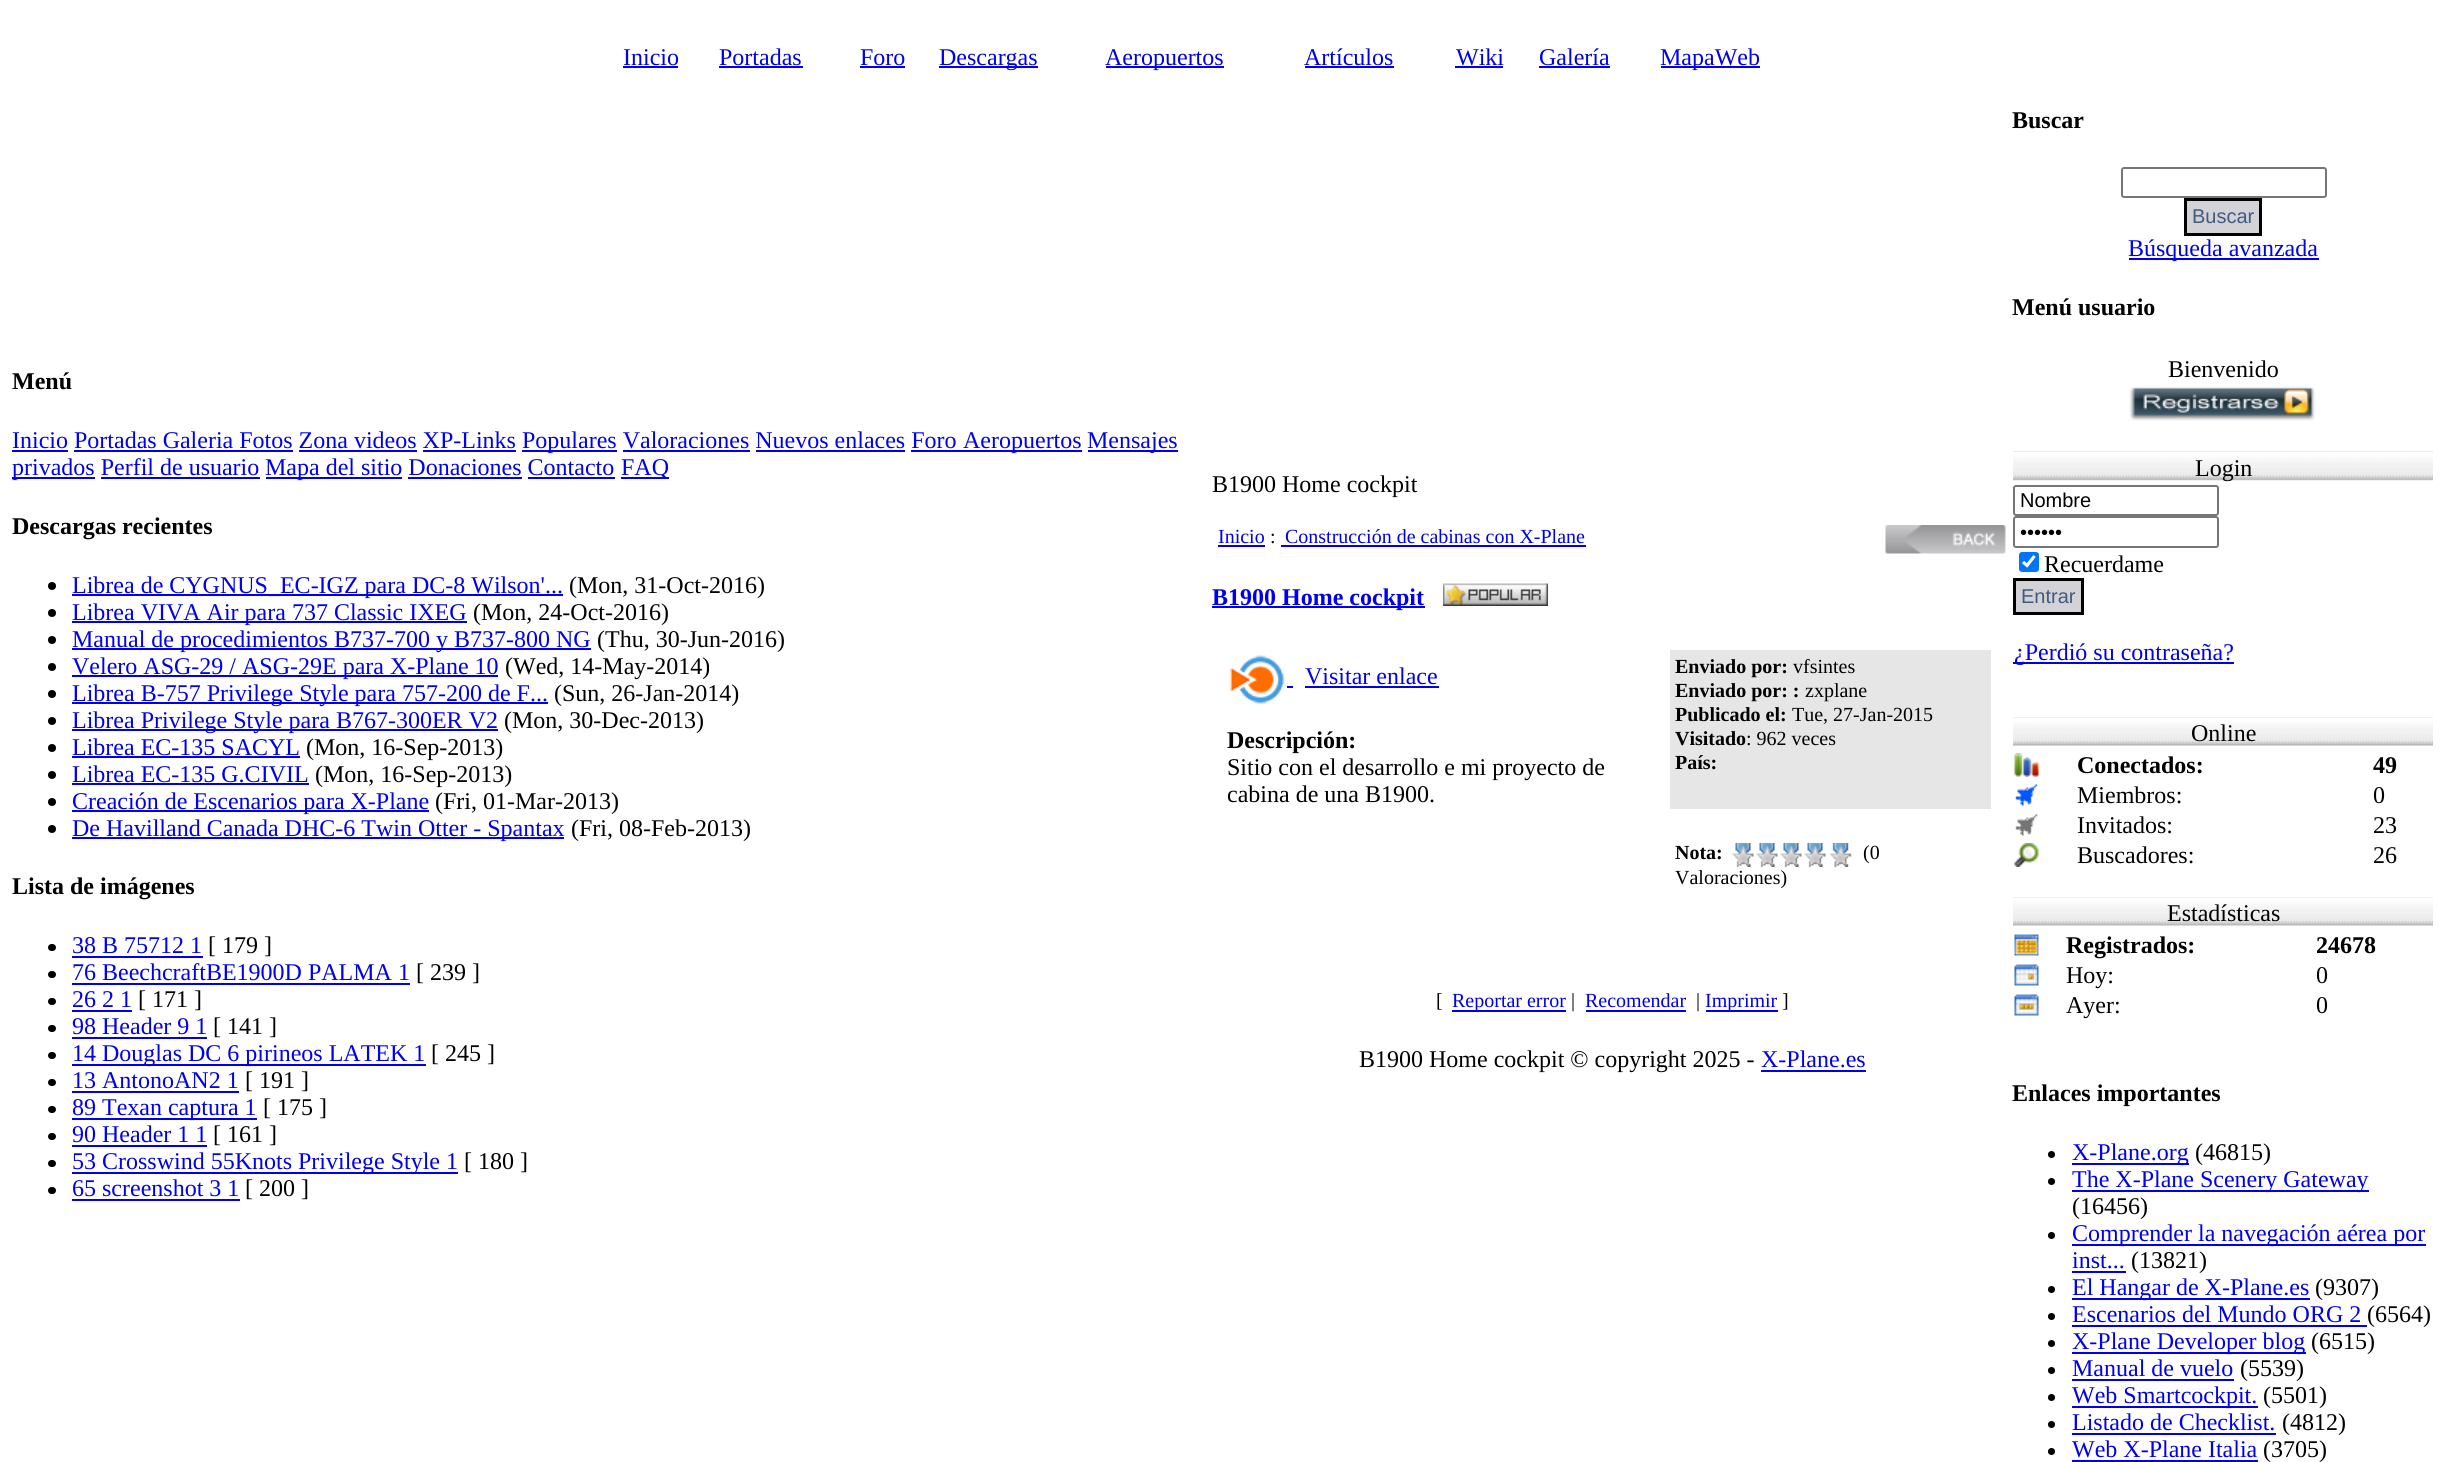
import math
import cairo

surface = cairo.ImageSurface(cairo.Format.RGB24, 2446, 1462)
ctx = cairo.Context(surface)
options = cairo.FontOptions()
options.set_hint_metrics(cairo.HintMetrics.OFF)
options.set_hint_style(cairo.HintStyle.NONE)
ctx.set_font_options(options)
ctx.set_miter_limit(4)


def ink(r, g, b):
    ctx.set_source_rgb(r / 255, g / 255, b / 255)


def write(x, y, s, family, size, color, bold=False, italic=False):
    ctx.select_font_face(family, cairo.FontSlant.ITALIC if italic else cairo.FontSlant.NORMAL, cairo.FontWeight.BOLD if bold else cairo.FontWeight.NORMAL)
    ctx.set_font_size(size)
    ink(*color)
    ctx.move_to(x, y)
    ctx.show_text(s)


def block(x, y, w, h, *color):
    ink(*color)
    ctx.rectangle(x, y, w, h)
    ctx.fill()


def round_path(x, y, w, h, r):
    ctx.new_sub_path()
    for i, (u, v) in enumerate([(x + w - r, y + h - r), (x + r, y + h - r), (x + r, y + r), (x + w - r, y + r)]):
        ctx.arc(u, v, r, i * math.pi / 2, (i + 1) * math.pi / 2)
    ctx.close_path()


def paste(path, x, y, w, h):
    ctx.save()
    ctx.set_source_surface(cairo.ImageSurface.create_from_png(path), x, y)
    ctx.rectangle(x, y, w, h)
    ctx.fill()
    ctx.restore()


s1 = dict(family="Liberation Serif", size=24, color=(0, 0, 238))
s2 = dict(family="Liberation Serif", size=24, color=(0, 0, 0), bold=True)
s3 = dict(family="Liberation Serif", size=24, color=(0, 0, 0))
s4 = dict(family="Liberation Serif", size=20, color=(0, 0, 238))
s5 = dict(family="Liberation Serif", size=20, color=(0, 0, 0))
s6 = dict(family="Liberation Serif", size=24, color=(0, 0, 238), bold=True)
s7 = dict(family="Liberation Serif", size=20, color=(0, 0, 0), bold=True)
s8 = dict(family="Liberation Sans", size=20, color=(64, 90, 128))
s9 = dict(family="Liberation Sans", size=20, color=(0, 0, 0))

ink(255, 255, 255)
ctx.paint()
write(623, 65, "Inicio", **s1)
block(623, 66, 55, 2, 0, 0, 238)
write(719, 65, "Portadas", **s1)
block(719, 66, 84, 2, 0, 0, 238)
write(860, 65, "Foro", **s1)
block(860, 66, 45, 2, 0, 0, 238)
block(939, 66, 99, 2, 0, 0, 238)
write(939, 65, "Descargas", **s1)
block(1106, 66, 118, 2, 0, 0, 238)
write(1105, 65, "Aeropuertos", **s1)
write(1304, 65, "Artículos", **s1)
block(1305, 66, 89, 2, 0, 0, 238)
write(1456, 65, "Wiki", **s1)
block(1455, 66, 48, 2, 0, 0, 238)
write(1539, 65, "Galería", **s1)
block(1539, 66, 71, 2, 0, 0, 238)
block(1661, 66, 99, 2, 0, 0, 238)
write(1660, 65, "MapaWeb", **s1)
write(12, 389, "Menú", **s2)
write(12, 448, "Inicio Portadas Galeria Fotos Zona videos XP-Links", **s1)
block(12, 450, 56, 2, 0, 0, 238)
block(522, 450, 95, 2, 0, 0, 238)
write(522, 448, "Populares Valoraciones Nuevos enlaces Foro", **s1)
block(911, 450, 171, 2, 0, 0, 238)
write(963, 448, "Aeropuertos", **s1)
block(1088, 450, 90, 2, 0, 0, 238)
write(1087, 448, "Mensajes", **s1)
block(74, 450, 219, 2, 0, 0, 238)
block(299, 450, 118, 2, 0, 0, 238)
block(423, 450, 93, 2, 0, 0, 238)
block(623, 450, 127, 2, 0, 0, 238)
block(756, 450, 149, 2, 0, 0, 238)
block(12, 477, 83, 2, 0, 0, 238)
write(12, 475, "privados Perfil de usuario", **s1)
block(266, 477, 136, 2, 0, 0, 238)
write(265, 475, "Mapa del sitio Donaciones Contacto", **s1)
block(621, 477, 48, 2, 0, 0, 238)
write(621, 475, "FAQ", **s1)
block(101, 477, 159, 2, 0, 0, 238)
block(408, 477, 114, 2, 0, 0, 238)
block(528, 477, 87, 2, 0, 0, 238)
write(12, 534, "Descargas recientes", **s2)
ctx.new_path()
ctx.arc(52, 586, 4, 0, 2 * math.pi)
ctx.fill()
block(72, 594, 491, 2, 0, 0, 238)
write(72, 593, "Librea de CYGNUS_EC-IGZ para DC-8 Wilson'...", **s1)
write(569, 593, "(Mon, 31-Oct-2016)", **s3)
ctx.new_path()
ctx.arc(52, 613, 4, 0, 2 * math.pi)
ctx.fill()
block(72, 621, 395, 2, 0, 0, 238)
write(72, 620, "Librea VIVA Air para 737 Classic IXEG", **s1)
write(473, 620, "(Mon, 24-Oct-2016)", **s3)
ctx.new_path()
ctx.arc(52, 640, 4, 0, 2 * math.pi)
ctx.fill()
block(72, 648, 519, 2, 0, 0, 238)
write(72, 647, "Manual de procedimientos B737-700 y B737-800 NG", **s1)
write(597, 647, "(Thu, 30-Jun-2016)", **s3)
ctx.new_path()
ctx.arc(52, 667, 4, 0, 2 * math.pi)
ctx.fill()
block(72, 675, 426, 2, 0, 0, 238)
write(72, 674, "Velero ASG-29 / ASG-29E para X-Plane 10", **s1)
write(505, 674, "(Wed, 14-May-2014)", **s3)
ctx.new_path()
ctx.arc(52, 694, 4, 0, 2 * math.pi)
ctx.fill()
block(72, 702, 476, 2, 0, 0, 238)
write(72, 701, "Librea B-757 Privilege Style para 757-200 de F...", **s1)
write(554, 701, "(Sun, 26-Jan-2014)", **s3)
ctx.new_path()
ctx.arc(52, 721, 4, 0, 2 * math.pi)
ctx.fill()
block(72, 729, 426, 2, 0, 0, 238)
write(72, 728, "Librea Privilege Style para B767-300ER V2", **s1)
write(504, 728, "(Mon, 30-Dec-2013)", **s3)
ctx.new_path()
ctx.arc(52, 748, 4, 0, 2 * math.pi)
ctx.fill()
write(72, 755, "Librea EC-135 SACYL", **s1)
block(72, 756, 228, 2, 0, 0, 238)
write(306, 755, "(Mon, 16-Sep-2013)", **s3)
ctx.new_path()
ctx.arc(52, 775, 4, 0, 2 * math.pi)
ctx.fill()
write(72, 782, "Librea EC-135 G.CIVIL", **s1)
block(72, 783, 237, 2, 0, 0, 238)
write(315, 782, "(Mon, 16-Sep-2013)", **s3)
ctx.new_path()
ctx.arc(52, 802, 4, 0, 2 * math.pi)
ctx.fill()
block(72, 810, 357, 2, 0, 0, 238)
write(72, 809, "Creación de Escenarios para X-Plane", **s1)
write(435, 809, "(Fri, 01-Mar-2013)", **s3)
ctx.new_path()
ctx.arc(52, 829, 4, 0, 2 * math.pi)
ctx.fill()
block(72, 837, 492, 2, 0, 0, 238)
write(72, 836, "De Havilland Canada DHC-6 Twin Otter - Spantax", **s1)
write(571, 836, "(Fri, 08-Feb-2013)", **s3)
write(12, 894, "Lista de imágenes", **s2)
round_path(48, 944, 8, 7, 3.5)
ctx.fill()
write(72, 953, "38 B 75712 1", **s1)
block(72, 956, 131, 2, 0, 0, 238)
write(208, 953, "[ 179 ]", **s3)
round_path(48, 971, 8, 7, 3.5)
ctx.fill()
write(72, 980, "76 BeechcraftBE1900D PALMA 1", **s1)
block(72, 983, 338, 2, 0, 0, 238)
write(416, 980, "[ 239 ]", **s3)
round_path(48, 998, 8, 7, 3.5)
ctx.fill()
write(72, 1007, "26 2 1", **s1)
block(72, 1010, 60, 2, 0, 0, 238)
write(138, 1007, "[ 171 ]", **s3)
round_path(48, 1025, 8, 7, 3.5)
ctx.fill()
write(72, 1034, "98 Header 9 1", **s1)
block(72, 1037, 135, 2, 0, 0, 238)
write(213, 1034, "[ 141 ]", **s3)
round_path(48, 1052, 8, 7, 3.5)
ctx.fill()
block(72, 1064, 354, 2, 0, 0, 238)
write(72, 1061, "14 Douglas DC 6 pirineos LATEK 1", **s1)
write(431, 1061, "[ 245 ]", **s3)
round_path(48, 1079, 8, 7, 3.5)
ctx.fill()
write(72, 1088, "13 AntonoAN2 1", **s1)
block(72, 1091, 167, 2, 0, 0, 238)
write(245, 1088, "[ 191 ]", **s3)
round_path(48, 1106, 8, 7, 3.5)
ctx.fill()
block(72, 1118, 185, 2, 0, 0, 238)
write(72, 1115, "89 Texan captura 1", **s1)
write(263, 1115, "[ 175 ]", **s3)
round_path(48, 1133, 8, 7, 3.5)
ctx.fill()
write(72, 1142, "90 Header 1 1", **s1)
block(72, 1145, 135, 2, 0, 0, 238)
write(213, 1142, "[ 161 ]", **s3)
round_path(48, 1160, 8, 7, 3.5)
ctx.fill()
block(72, 1172, 386, 2, 0, 0, 238)
write(72, 1169, "53 Crosswind 55Knots Privilege Style 1", **s1)
write(464, 1169, "[ 180 ]", **s3)
round_path(48, 1187, 8, 7, 3.5)
ctx.fill()
write(72, 1196, "65 screenshot 3 1", **s1)
block(72, 1199, 168, 2, 0, 0, 238)
write(245, 1196, "[ 200 ]", **s3)
write(1212, 492, "B1900 Home cockpit", **s3)
write(1218, 543, "Inicio", **s4)
block(1218, 545, 47, 2, 0, 0, 238)
write(1270, 543, ":", **s5)
write(1285, 543, "Construcción de cabinas con X-Plane", **s4)
block(1281, 545, 305, 2, 0, 0, 238)
paste("pic1.png", 1885, 525, 121, 29)
block(1212, 606, 213, 2, 0, 0, 238)
write(1212, 605, "B1900 Home cockpit", **s6)
paste("pic2.png", 1443, 583, 105, 23)
paste("pic3.png", 1229, 655, 56, 49)
write(1305, 684, "Visitar enlace", **s1)
block(1305, 686, 134, 2, 0, 0, 238)
block(1287, 686, 6, 2, 0, 0, 238)
write(1227, 748, "Descripción:", **s2)
write(1227, 775, "Sitio con el desarrollo e mi proyecto de", **s3)
write(1227, 802, "cabina de una B1900.", **s3)
block(1670, 650, 321, 159, 230, 230, 230)
write(1675, 673, "Enviado por:", **s7)
write(1793, 673, "vfsintes", **s5)
write(1675, 697, "Enviado por: :", **s7)
write(1805, 697, "zxplane", **s5)
write(1675, 721, "Publicado el:", **s7)
write(1792, 721, "Tue, 27-Jan-2015", **s5)
write(1675, 745, "Visitado", **s7)
write(1746, 745, ": 962 veces", **s5)
write(1675, 769, "País:", **s7)
write(1675, 859, "Nota:", **s7)
paste("pic4.png", 1732, 843, 120, 24)
write(1863, 859, "(0", **s5)
write(1675, 884, "Valoraciones)", **s5)
write(1436, 1007, "[", **s5)
block(1452, 1010, 114, 2, 0, 0, 238)
write(1452, 1007, "Reportar error", **s4)
write(1571, 1007, "|", **s5)
write(1585, 1007, "Recomendar", **s4)
block(1586, 1010, 100, 2, 0, 0, 238)
write(1696, 1007, "|", **s5)
block(1706, 1010, 72, 2, 0, 0, 238)
write(1705, 1007, "Imprimir", **s4)
write(1782, 1007, "]", **s5)
write(1359, 1067, "B1900 Home cockpit © copyright 2025 -", **s3)
write(1761, 1067, "X-Plane.es", **s1)
block(1761, 1070, 105, 2, 0, 0, 238)
write(2012, 128, "Buscar", **s2)
round_path(2122, 168, 204, 29, 2)
ink(118, 118, 118)
ctx.stroke()
ink(211, 210, 214)
ctx.rectangle(2185.5, 199.5, 75, 35)
ctx.fill_preserve()
ink(0, 0, 0)
ctx.set_line_width(3)
ctx.stroke()
write(2192, 223, "Buscar", **s8)
block(2129, 258, 190, 2, 0, 0, 238)
write(2128, 256, "Búsqueda avanzada", **s1)
write(2012, 315, "Menú usuario", **s2)
write(2168, 377, "Bienvenido", **s3)
paste("pic5.png", 2129, 386, 186, 35)
paste("pic6.png", 2013, 451, 420, 30)
write(2195, 476, "Login", **s3)
round_path(2014, 486, 204, 29, 2)
ink(118, 118, 118)
ctx.set_line_width(2)
ctx.stroke()
write(2020, 507, "Nombre", **s9)
round_path(2014, 517, 204, 30, 2)
ink(118, 118, 118)
ctx.stroke()
write(2020, 539, "••••••", **s9)
ink(0, 117, 255)
round_path(2019, 552, 20, 20, 3)
ctx.fill()
ctx.new_path()
ctx.move_to(2023, 562)
ctx.line_to(2027, 565.5)
ctx.line_to(2034.5, 556)
ink(255, 255, 255)
ctx.set_line_width(3.1)
ctx.stroke()
write(2044, 572, "Recuerdame", **s3)
ink(211, 210, 214)
ctx.rectangle(2014.5, 579.5, 68, 34)
ctx.fill_preserve()
ink(0, 0, 0)
ctx.set_line_width(3)
ctx.stroke()
write(2021, 603, "Entrar", **s8)
block(2013, 662, 221, 2, 0, 0, 238)
write(2014, 660, "¿Perdió su contraseña?", **s1)
paste("pic7.png", 2013, 717, 420, 29)
write(2191, 741, "Online", **s3)
paste("pic8.png", 2014, 753, 25, 24)
write(2077, 773, "Conectados:", **s2)
write(2373, 773, "49", **s2)
paste("pic9.png", 2014, 784, 24, 22)
write(2077, 803, "Miembros:", **s3)
write(2373, 803, "0", **s3)
paste("pic10.png", 2015, 814, 23, 22)
write(2077, 833, "Invitados:", **s3)
write(2373, 833, "23", **s3)
paste("pic11.png", 2014, 843, 25, 24)
write(2077, 863, "Buscadores:", **s3)
write(2373, 863, "26", **s3)
paste("pic12.png", 2013, 897, 420, 29)
write(2167, 921, "Estadísticas", **s3)
paste("pic13.png", 2014, 934, 25, 22)
write(2066, 953, "Registrados:", **s2)
write(2316, 953, "24678", **s2)
paste("pic14.png", 2014, 964, 25, 22)
write(2066, 983, "Hoy:", **s3)
write(2316, 983, "0", **s3)
paste("pic15.png", 2014, 994, 25, 22)
write(2066, 1013, "Ayer:", **s3)
write(2316, 1013, "0", **s3)
write(2012, 1101, "Enlaces importantes", **s2)
ctx.new_path()
ctx.arc(2051.5, 1154.5, 3.5, 0, 2 * math.pi)
ctx.fill()
block(2072, 1163, 117, 2, 0, 0, 238)
write(2072, 1160, "X-Plane.org", **s1)
write(2195, 1160, "(46815)", **s3)
ctx.new_path()
ctx.arc(2051.5, 1181.5, 3.5, 0, 2 * math.pi)
ctx.fill()
block(2072, 1190, 297, 2, 0, 0, 238)
write(2072, 1187, "The X-Plane Scenery Gateway", **s1)
write(2072, 1214, "(16456)", **s3)
ctx.new_path()
ctx.arc(2051.5, 1235.5, 3.5, 0, 2 * math.pi)
ctx.fill()
block(2072, 1244, 354, 2, 0, 0, 238)
write(2072, 1241, "Comprender la navegación aérea por", **s1)
write(2072, 1268, "inst...", **s1)
block(2072, 1271, 54, 2, 0, 0, 238)
write(2131, 1268, "(13821)", **s3)
ctx.new_path()
ctx.arc(2051.5, 1289.5, 3.5, 0, 2 * math.pi)
ctx.fill()
block(2072, 1298, 238, 2, 0, 0, 238)
write(2072, 1295, "El Hangar de X-Plane.es", **s1)
write(2315, 1295, "(9307)", **s3)
ctx.new_path()
ctx.arc(2051.5, 1316.5, 3.5, 0, 2 * math.pi)
ctx.fill()
write(2072, 1322, "Escenarios del Mundo ORG 2", **s1)
block(2072, 1325, 295, 2, 0, 0, 238)
write(2367, 1322, "(6564)", **s3)
ctx.new_path()
ctx.arc(2051.5, 1343.5, 3.5, 0, 2 * math.pi)
ctx.fill()
block(2072, 1352, 234, 2, 0, 0, 238)
write(2072, 1349, "X-Plane Developer blog", **s1)
write(2311, 1349, "(6515)", **s3)
ctx.new_path()
ctx.arc(2051.5, 1370.5, 3.5, 0, 2 * math.pi)
ctx.fill()
write(2072, 1376, "Manual de vuelo", **s1)
block(2072, 1379, 162, 2, 0, 0, 238)
write(2240, 1376, "(5539)", **s3)
ctx.new_path()
ctx.arc(2051.5, 1397.5, 3.5, 0, 2 * math.pi)
ctx.fill()
block(2072, 1406, 186, 2, 0, 0, 238)
write(2072, 1403, "Web Smartcockpit.", **s1)
write(2263, 1403, "(5501)", **s3)
ctx.new_path()
ctx.arc(2051.5, 1424.5, 3.5, 0, 2 * math.pi)
ctx.fill()
write(2072, 1430, "Listado de Checklist.", **s1)
block(2072, 1433, 204, 2, 0, 0, 238)
write(2282, 1430, "(4812)", **s3)
ctx.new_path()
ctx.arc(2051.5, 1451.5, 3.5, 0, 2 * math.pi)
ctx.fill()
write(2072, 1457, "Web X-Plane Italia", **s1)
block(2072, 1460, 186, 2, 0, 0, 238)
write(2263, 1457, "(3705)", **s3)
surface.write_to_png("screenshot.png")
